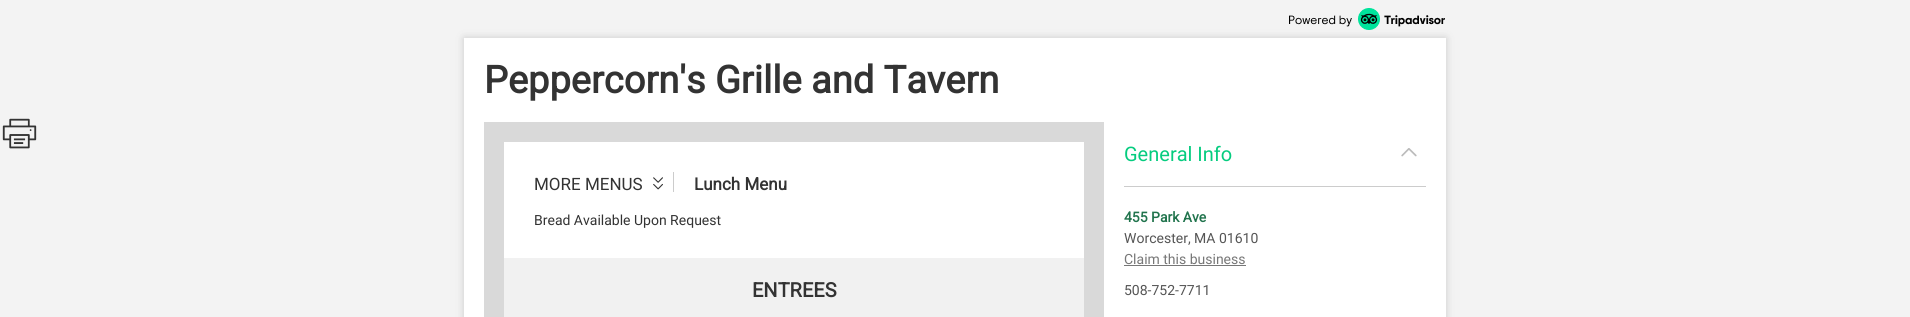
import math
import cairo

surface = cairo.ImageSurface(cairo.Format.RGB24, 1910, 317)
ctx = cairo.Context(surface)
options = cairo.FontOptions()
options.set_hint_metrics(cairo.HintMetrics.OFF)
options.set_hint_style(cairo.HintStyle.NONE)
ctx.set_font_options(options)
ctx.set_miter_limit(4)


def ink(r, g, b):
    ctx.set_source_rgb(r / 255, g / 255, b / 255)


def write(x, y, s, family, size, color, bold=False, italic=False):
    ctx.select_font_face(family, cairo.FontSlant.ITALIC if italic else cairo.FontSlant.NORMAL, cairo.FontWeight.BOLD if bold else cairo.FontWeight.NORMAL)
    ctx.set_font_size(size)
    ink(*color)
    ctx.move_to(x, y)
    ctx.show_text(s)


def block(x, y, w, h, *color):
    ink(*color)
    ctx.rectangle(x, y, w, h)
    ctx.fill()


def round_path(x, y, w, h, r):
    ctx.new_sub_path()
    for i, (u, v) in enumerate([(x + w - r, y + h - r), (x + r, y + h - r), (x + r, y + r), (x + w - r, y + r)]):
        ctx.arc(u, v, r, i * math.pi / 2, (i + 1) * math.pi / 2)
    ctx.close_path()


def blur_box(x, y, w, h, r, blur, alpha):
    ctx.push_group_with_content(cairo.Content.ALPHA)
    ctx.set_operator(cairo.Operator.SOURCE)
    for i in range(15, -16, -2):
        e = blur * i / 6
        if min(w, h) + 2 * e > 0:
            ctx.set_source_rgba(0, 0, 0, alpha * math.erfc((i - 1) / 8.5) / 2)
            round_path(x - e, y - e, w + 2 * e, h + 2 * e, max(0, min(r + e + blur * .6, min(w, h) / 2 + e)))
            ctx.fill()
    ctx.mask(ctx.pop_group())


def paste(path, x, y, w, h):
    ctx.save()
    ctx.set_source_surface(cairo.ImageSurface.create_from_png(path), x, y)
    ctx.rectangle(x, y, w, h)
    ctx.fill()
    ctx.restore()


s1 = dict(family="Roboto", size=38, color=(51, 51, 51), bold=True)
s2 = dict(family="Roboto", size=17, color=(51, 51, 51))
s3 = dict(family="Roboto", size=17, color=(51, 51, 51), bold=True)
s4 = dict(family="Roboto", size=14, color=(51, 51, 51))
s5 = dict(family="Roboto", size=20, color=(51, 51, 51), bold=True)
s6 = dict(family="Roboto", size=20, color=(5, 204, 127))
s7 = dict(family="Roboto", size=14, color=(33, 116, 77), bold=True)
s8 = dict(family="Roboto", size=14, color=(85, 85, 85))
s9 = dict(family="Roboto", size=14, color=(119, 119, 119))

ink(243, 243, 243)
ctx.paint()
ink(204, 204, 204)
blur_box(464, 38, 982, 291, 0, 4, 1)
paste("pic1.png", 1289, 8, 156, 22)
block(464, 38, 982, 279, 255, 255, 255)
write(484, 93, "Peppercorn's Grille and Tavern", **s1)
paste("pic2.png", 2, 118, 35, 31)
ctx.rectangle(494, 132, 600, 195)
ink(217, 217, 217)
ctx.set_line_width(20)
ctx.stroke()
block(673, 172, 1, 20, 204, 204, 204)
write(534, 190, "MORE MENUS", **s2)
paste("pic3.png", 653, 177, 10, 13)
write(694, 190, "Lunch Menu", **s3)
write(534, 225, "Bread Available Upon Request", **s4)
block(504, 258, 580, 59, 241, 241, 241)
write(752, 297, "ENTREES", **s5)
block(1124, 186, 302, 1, 204, 204, 204)
write(1124, 161, "General Info", **s6)
paste("pic4.png", 1401, 148, 16, 9)
write(1124, 222, "455 Park Ave", **s7)
write(1124, 243, "Worcester, MA 01610", **s8)
write(1124, 264, "Claim this business", **s9)
block(1124, 265, 122, 1, 119, 119, 119)
write(1124, 295, "508-752-7711", **s8)
surface.write_to_png("screenshot.png")
